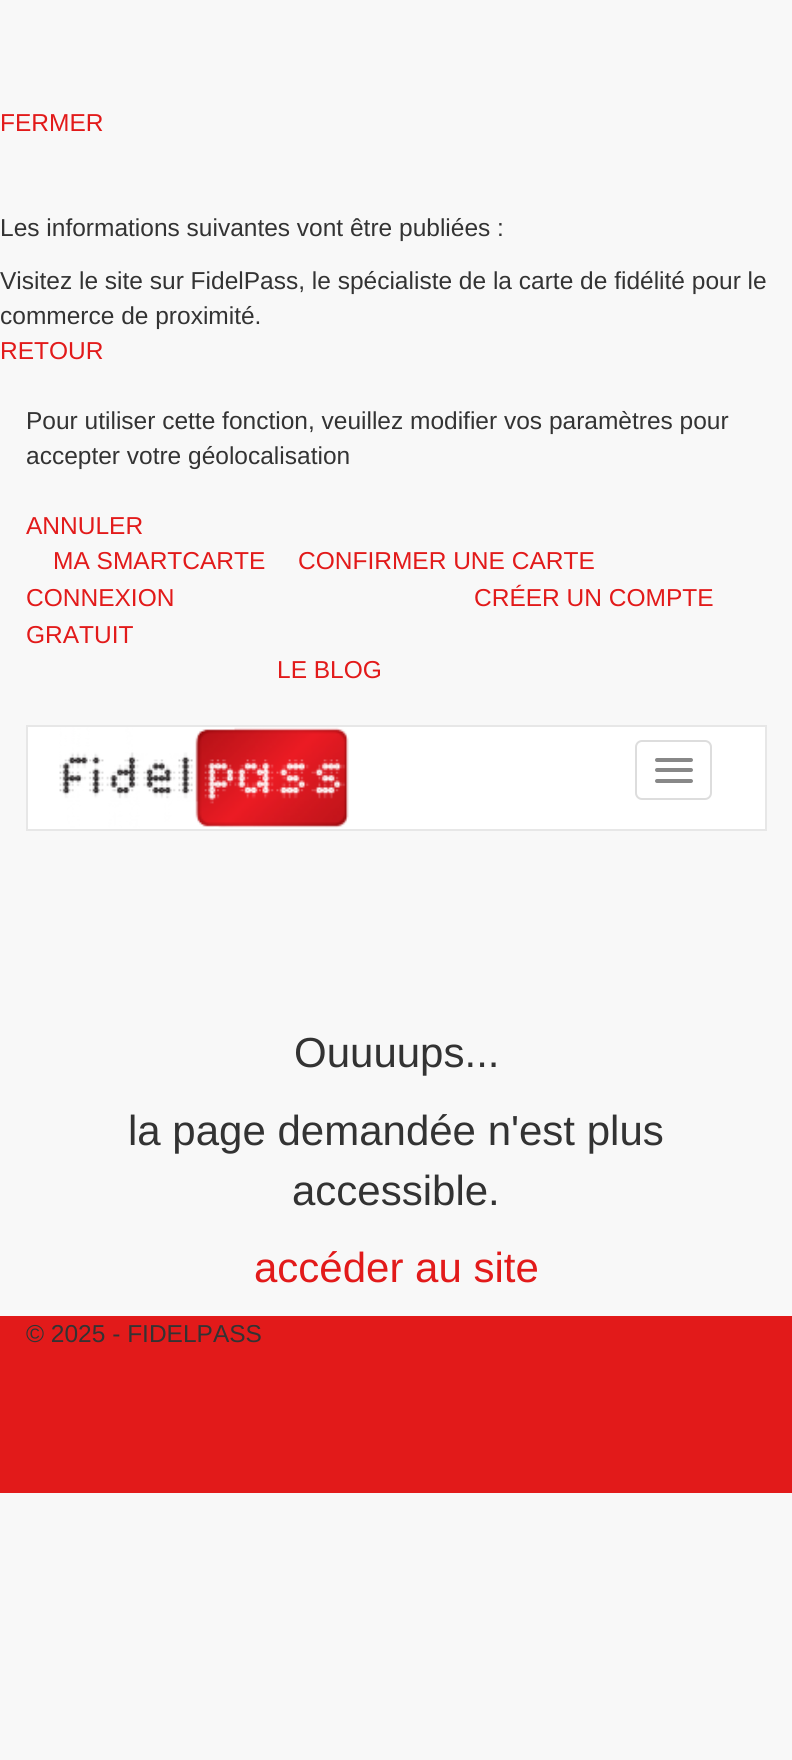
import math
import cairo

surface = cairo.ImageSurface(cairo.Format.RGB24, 792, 1760)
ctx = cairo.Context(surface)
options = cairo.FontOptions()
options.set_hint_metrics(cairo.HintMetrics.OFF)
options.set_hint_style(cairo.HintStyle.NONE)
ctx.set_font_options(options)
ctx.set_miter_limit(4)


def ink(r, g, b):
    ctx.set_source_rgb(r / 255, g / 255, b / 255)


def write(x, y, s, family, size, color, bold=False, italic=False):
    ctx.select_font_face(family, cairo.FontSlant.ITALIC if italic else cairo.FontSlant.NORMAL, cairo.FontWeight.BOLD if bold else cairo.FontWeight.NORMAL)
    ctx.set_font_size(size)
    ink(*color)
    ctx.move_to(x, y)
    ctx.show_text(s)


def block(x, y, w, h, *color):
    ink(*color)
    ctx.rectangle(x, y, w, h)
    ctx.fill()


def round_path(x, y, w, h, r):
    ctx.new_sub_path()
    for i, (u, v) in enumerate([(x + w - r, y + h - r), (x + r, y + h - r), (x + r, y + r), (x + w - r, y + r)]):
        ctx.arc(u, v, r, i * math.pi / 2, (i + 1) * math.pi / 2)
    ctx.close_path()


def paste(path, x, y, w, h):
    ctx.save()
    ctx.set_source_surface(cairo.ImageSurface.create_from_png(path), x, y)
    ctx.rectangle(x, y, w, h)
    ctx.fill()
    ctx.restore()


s1 = dict(family="Liberation Sans", size=24.5, color=(226, 26, 26))
s2 = dict(family="Liberation Sans", size=24.5, color=(51, 51, 51))
s3 = dict(family="Liberation Sans", size=42, color=(51, 51, 51))
s4 = dict(family="Liberation Sans", size=42, color=(226, 26, 26))

ink(248, 248, 248)
ctx.paint()
write(0, 131, "FERMER", **s1)
write(0, 236, "Les informations suivantes vont être publiées :", **s2)
write(0, 289, "Visitez le site sur FidelPass, le spécialiste de la carte de fidélité pour le", **s2)
write(0, 324, "commerce de proximité.", **s2)
write(0, 359, "RETOUR", **s1)
write(26, 429, "Pour utiliser cette fonction, veuillez modifier vos paramètres pour", **s2)
write(26, 464, "accepter votre géolocalisation", **s2)
write(26, 534, "ANNULER", **s1)
write(53, 569, "MA SMARTCARTE", **s1)
write(298, 569, "CONFIRMER UNE CARTE", **s1)
write(26, 606, "CONNEXION", **s1)
write(474, 606, "CRÉER UN COMPTE", **s1)
write(26, 643, "GRATUIT", **s1)
write(277, 678, "LE BLOG", **s1)
ink(255, 255, 255)
ctx.rectangle(27, 726, 739, 104)
ctx.fill_preserve()
ink(231, 231, 231)
ctx.stroke()
paste("pic1.png", 59, 727, 290, 101)
round_path(636, 741, 75, 58, 6)
ink(221, 221, 221)
ctx.stroke()
ink(136, 136, 136)
round_path(655, 758, 38, 4, 2)
ctx.fill()
round_path(655, 768, 38, 4, 2)
ctx.fill()
round_path(655, 779, 38, 4, 2)
ctx.fill()
write(294, 1067, "Ouuuups...", **s3)
write(128, 1145, "la page demandée n'est plus", **s3)
write(292, 1205, "accessible.", **s3)
write(254, 1282, "accéder au site", **s4)
block(0, 1316, 792, 177, 226, 26, 26)
write(26, 1342, "© 2025 - FIDELPASS", **s2)
surface.write_to_png("screenshot.png")
